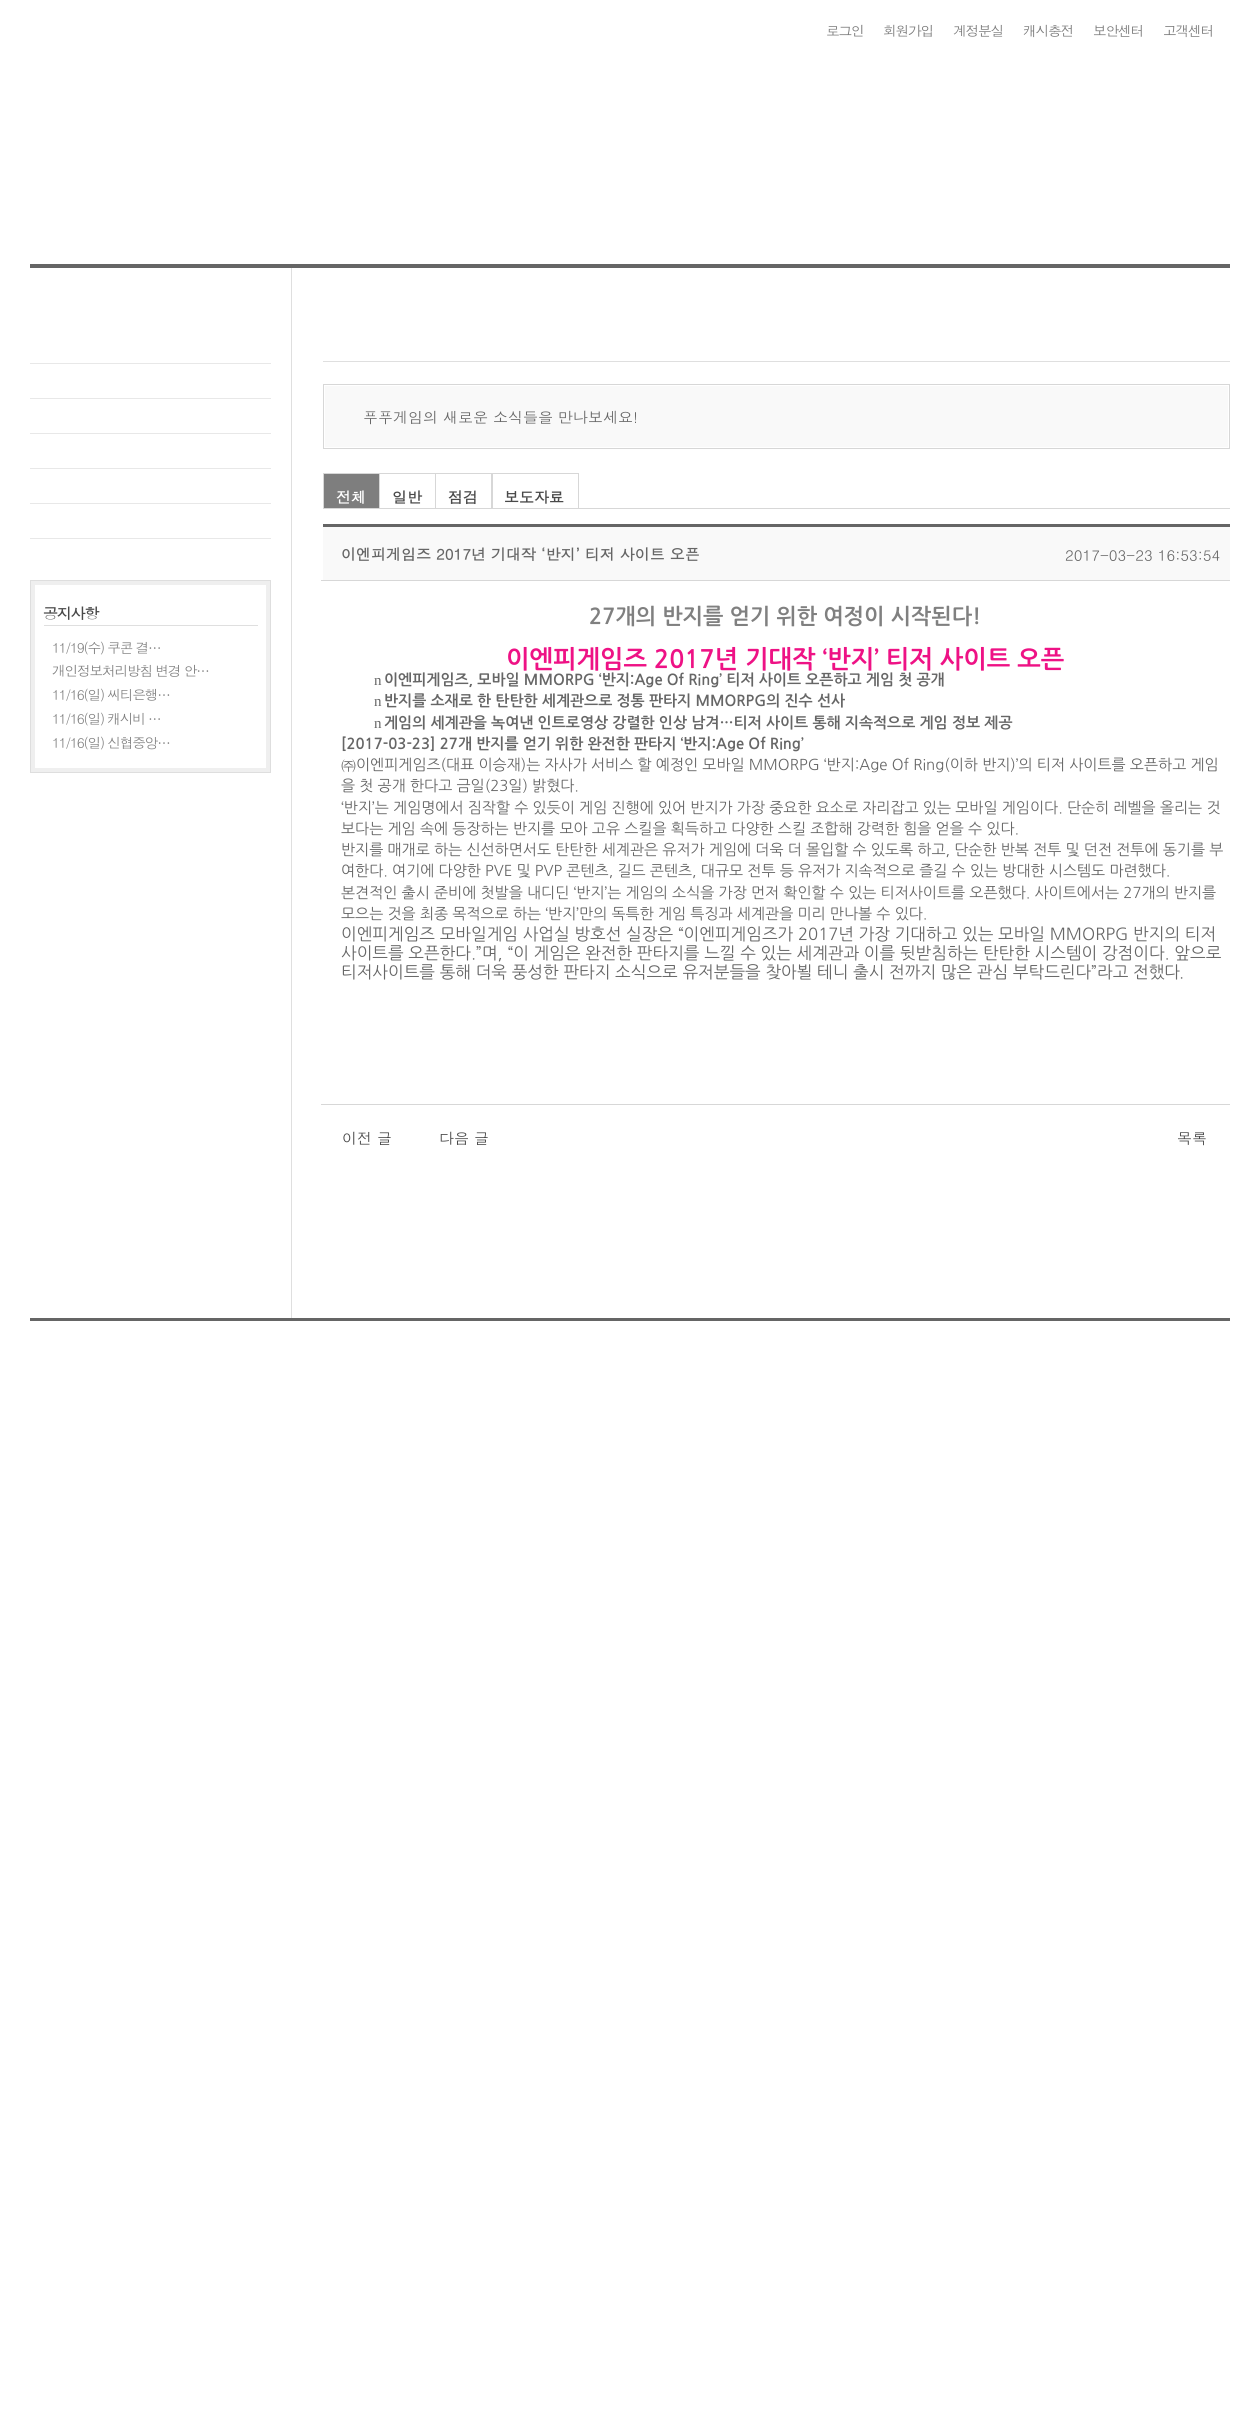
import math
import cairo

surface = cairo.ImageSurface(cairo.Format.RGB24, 1258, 2416)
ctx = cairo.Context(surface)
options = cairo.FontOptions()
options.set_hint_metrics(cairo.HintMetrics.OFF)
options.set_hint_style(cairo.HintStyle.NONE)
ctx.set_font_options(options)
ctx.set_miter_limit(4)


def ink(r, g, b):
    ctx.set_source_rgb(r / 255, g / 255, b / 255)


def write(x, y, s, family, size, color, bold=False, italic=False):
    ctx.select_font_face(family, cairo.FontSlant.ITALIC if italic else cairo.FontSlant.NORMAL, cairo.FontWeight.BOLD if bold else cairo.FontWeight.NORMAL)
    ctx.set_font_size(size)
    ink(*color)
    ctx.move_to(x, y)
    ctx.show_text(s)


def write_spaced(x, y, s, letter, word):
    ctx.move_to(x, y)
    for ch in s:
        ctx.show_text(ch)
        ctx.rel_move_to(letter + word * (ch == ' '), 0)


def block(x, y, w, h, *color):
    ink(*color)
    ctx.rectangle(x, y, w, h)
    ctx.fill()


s1 = dict(family="Dotum", size=15, color=(102, 102, 102))
s2 = dict(family="Dotum", size=15, color=(255, 255, 255), bold=True)
s3 = dict(family="Dotum", size=15, color=(73, 73, 73), bold=True)
s4 = dict(family="Dotum", size=15, color=(102, 102, 102), bold=True)
s5 = dict(family="NanumGothic", size=21.7, color=(128, 128, 128), bold=True)
s6 = dict(family="NanumGothic", size=25, color=(238, 18, 133), bold=True)
s7 = dict(family="Liberation Serif", size=15, color=(102, 102, 102))
s8 = dict(family="NanumGothic", size=15, color=(102, 102, 102), bold=True)
s9 = dict(family="WenQuanYi Zen Hei Medium", size=15, color=(102, 102, 102))
s10 = dict(family="NanumGothic", size=15, color=(102, 102, 102))
s11 = dict(family="NanumGothic", size=16.67, color=(102, 102, 102))
s12 = dict(family="Dotum", size=15, color=(73, 73, 73))

ink(255, 255, 255)
ctx.paint()
ctx.select_font_face("Dotum")
ctx.set_font_size(13.75)
ink(120, 120, 120)
write_spaced(826, 36, "로그인", -1.25, 0)
write_spaced(883, 36, "회원가입", -1.25, 0)
write_spaced(953, 36, "계정분실", -1.25, 0)
write_spaced(1023, 36, "캐시충전", -1.25, 0)
write_spaced(1093, 36, "보안센터", -1.25, 0)
write_spaced(1163, 36, "고객센터", -1.25, 0)
block(30, 264, 1200, 4, 101, 101, 101)
block(30, 363, 241, 1, 232, 232, 232)
block(30, 398, 241, 1, 232, 232, 232)
block(30, 433, 241, 1, 232, 232, 232)
block(30, 468, 241, 1, 232, 232, 232)
block(30, 503, 241, 1, 232, 232, 232)
block(30, 538, 241, 1, 232, 232, 232)
ink(239, 239, 239)
ctx.rectangle(30.5, 580.5, 240, 192)
ctx.fill_preserve()
ink(222, 222, 222)
ctx.set_line_width(1)
ctx.stroke()
block(35, 585, 231, 183, 255, 255, 255)
block(44, 625, 214, 1, 223, 223, 223)
ctx.select_font_face("Dotum", cairo.FontSlant.NORMAL, cairo.FontWeight.BOLD)
ctx.set_font_size(15)
ink(73, 73, 73)
write_spaced(43, 619, "공지사항", -1.25, 0)
ctx.select_font_face("Dotum")
ctx.set_font_size(13.75)
ink(128, 128, 128)
write_spaced(52, 653, "11/19(수) 쿠콘 결…", -1.25, 0)
write_spaced(52, 676, "개인정보처리방침 변경 안…", -1.25, 0)
write_spaced(52, 700, "11/16(일) 씨티은행…", -1.25, 0)
write_spaced(52, 724, "11/16(일) 캐시비 …", -1.25, 0)
write_spaced(52, 748, "11/16(일) 신협중앙…", -1.25, 0)
block(291, 268, 1, 1050, 223, 223, 223)
block(323, 361, 907, 1, 223, 223, 223)
ctx.rectangle(323.5, 384.5, 906, 64)
ink(215, 215, 215)
ctx.stroke()
block(325, 386, 903, 61, 249, 249, 249)
write(363, 423, "푸푸게임의 새로운 소식들을 만나보세요!", **s1)
block(579, 508, 651, 1, 215, 215, 215)
ink(126, 126, 126)
ctx.rectangle(323.5, 473.5, 56, 35)
ctx.fill_preserve()
ink(215, 215, 215)
ctx.stroke()
write(336, 503, "전체", **s2)
ctx.rectangle(379.5, 473.5, 56, 35)
ink(215, 215, 215)
ctx.stroke()
write(392, 503, "일반", **s3)
ctx.rectangle(435.5, 473.5, 57, 35)
ink(215, 215, 215)
ctx.stroke()
write(448, 503, "점검", **s3)
ctx.rectangle(491.5, 473.5, 87, 35)
ink(215, 215, 215)
ctx.stroke()
write(504, 503, "보도자료", **s3)
block(323, 524, 907, 3, 101, 101, 101)
block(323, 527, 907, 53, 249, 249, 249)
write(341, 560, "이엔피게임즈 2017년 기대작 ‘반지’ 티저 사이트 오픈", **s4)
block(321, 580, 909, 1, 215, 215, 215)
write(1065, 561, "2017-03-23 16:53:54", **s1)
block(321, 1104, 909, 1, 215, 215, 215)
write(589, 624, "27개의 반지를 얻기 위한 여정이 시작된다!", **s5)
write(506, 668, "이엔피게임즈 2017년 기대작 ‘반지’ 티저 사이트 오픈", **s6)
write(374, 685, "n", **s7)
write(384, 685, "이엔피게임즈, 모바일 MMORPG ‘반지:Age Of Ring’ 티저 사이트 오픈하고 게임 첫 공개", **s8)
write(374, 706, "n", **s7)
write(384, 706, "반지를 소재로 한 탄탄한 세계관으로 정통 판타지 MMORPG의 진수 선사", **s8)
write(374, 728, "n", **s7)
write(384, 728, "게임의 세계관을 녹여낸 인트로영상 강렬한 인상 남겨…티저 사이트 통해 지속적으로 게임 정보 제공", **s8)
write(341, 749, "[2017-03-23] 27개 반지를 얻기 위한 완전한 판타지 ‘반지:Age Of Ring’", **s8)
write(341, 770, "㈜", **s9)
write(356, 770, "이엔피게임즈(대표 이승재)는 자사가 서비스 할 예정인 모바일 MMORPG ‘반지:Age Of Ring(이하 반지)’의 티저 사이트를 오픈하고 게임", **s10)
write(341, 791, "을 첫 공개 한다고 금일(23일) 밝혔다.", **s10)
write(341, 813, "‘반지’는 게임명에서 짐작할 수 있듯이 게임 진행에 있어 반지가 가장 중요한 요소로 자리잡고 있는 모바일 게임이다. 단순히 레벨을 올리는 것", **s10)
write(341, 834, "보다는 게임 속에 등장하는 반지를 모아 고유 스킬을 획득하고 다양한 스킬 조합해 강력한 힘을 얻을 수 있다.", **s10)
write(341, 855, "반지를 매개로 하는 신선하면서도 탄탄한 세계관은 유저가 게임에 더욱 더 몰입할 수 있도록 하고, 단순한 반복 전투 및 던전 전투에 동기를 부", **s10)
write(341, 876, "여한다. 여기에 다양한 PVE 및 PVP 콘텐츠, 길드 콘텐츠, 대규모 전투 등 유저가 지속적으로 즐길 수 있는 방대한 시스템도 마련했다.", **s10)
write(341, 898, "본견적인 출시 준비에 첫발을 내디딘 ‘반지’는 게임의 소식을 가장 먼저 확인할 수 있는 티저사이트를 오픈했다. 사이트에서는 27개의 반지를", **s10)
write(341, 919, "모으는 것을 최종 목적으로 하는 ‘반지’만의 독특한 게임 특징과 세계관을 미리 만나볼 수 있다.", **s10)
write(341, 940, "이엔피게임즈 모바일게임 사업실 방호선 실장은 “이엔피게임즈가 2017년 가장 기대하고 있는 모바일 MMORPG 반지의 티저", **s11)
write(341, 959, "사이트를 오픈한다.”며, “이 게임은 완전한 판타지를 느낄 수 있는 세계관과 이를 뒷받침하는 탄탄한 시스템이 강점이다. 앞으로", **s11)
write(341, 978, "티저사이트를 통해 더욱 풍성한 판타지 소식으로 유저분들을 찾아뵐 테니 출시 전까지 많은 관심 부탁드린다”라고 전했다", **s11)
write(1179, 978, ".", **s11)
write(342, 1144, "이전 글", **s12)
write(439, 1144, "다음 글", **s12)
write(1177, 1144, "목록", **s12)
block(30, 1318, 1200, 3, 101, 101, 101)
surface.write_to_png("screenshot.png")
